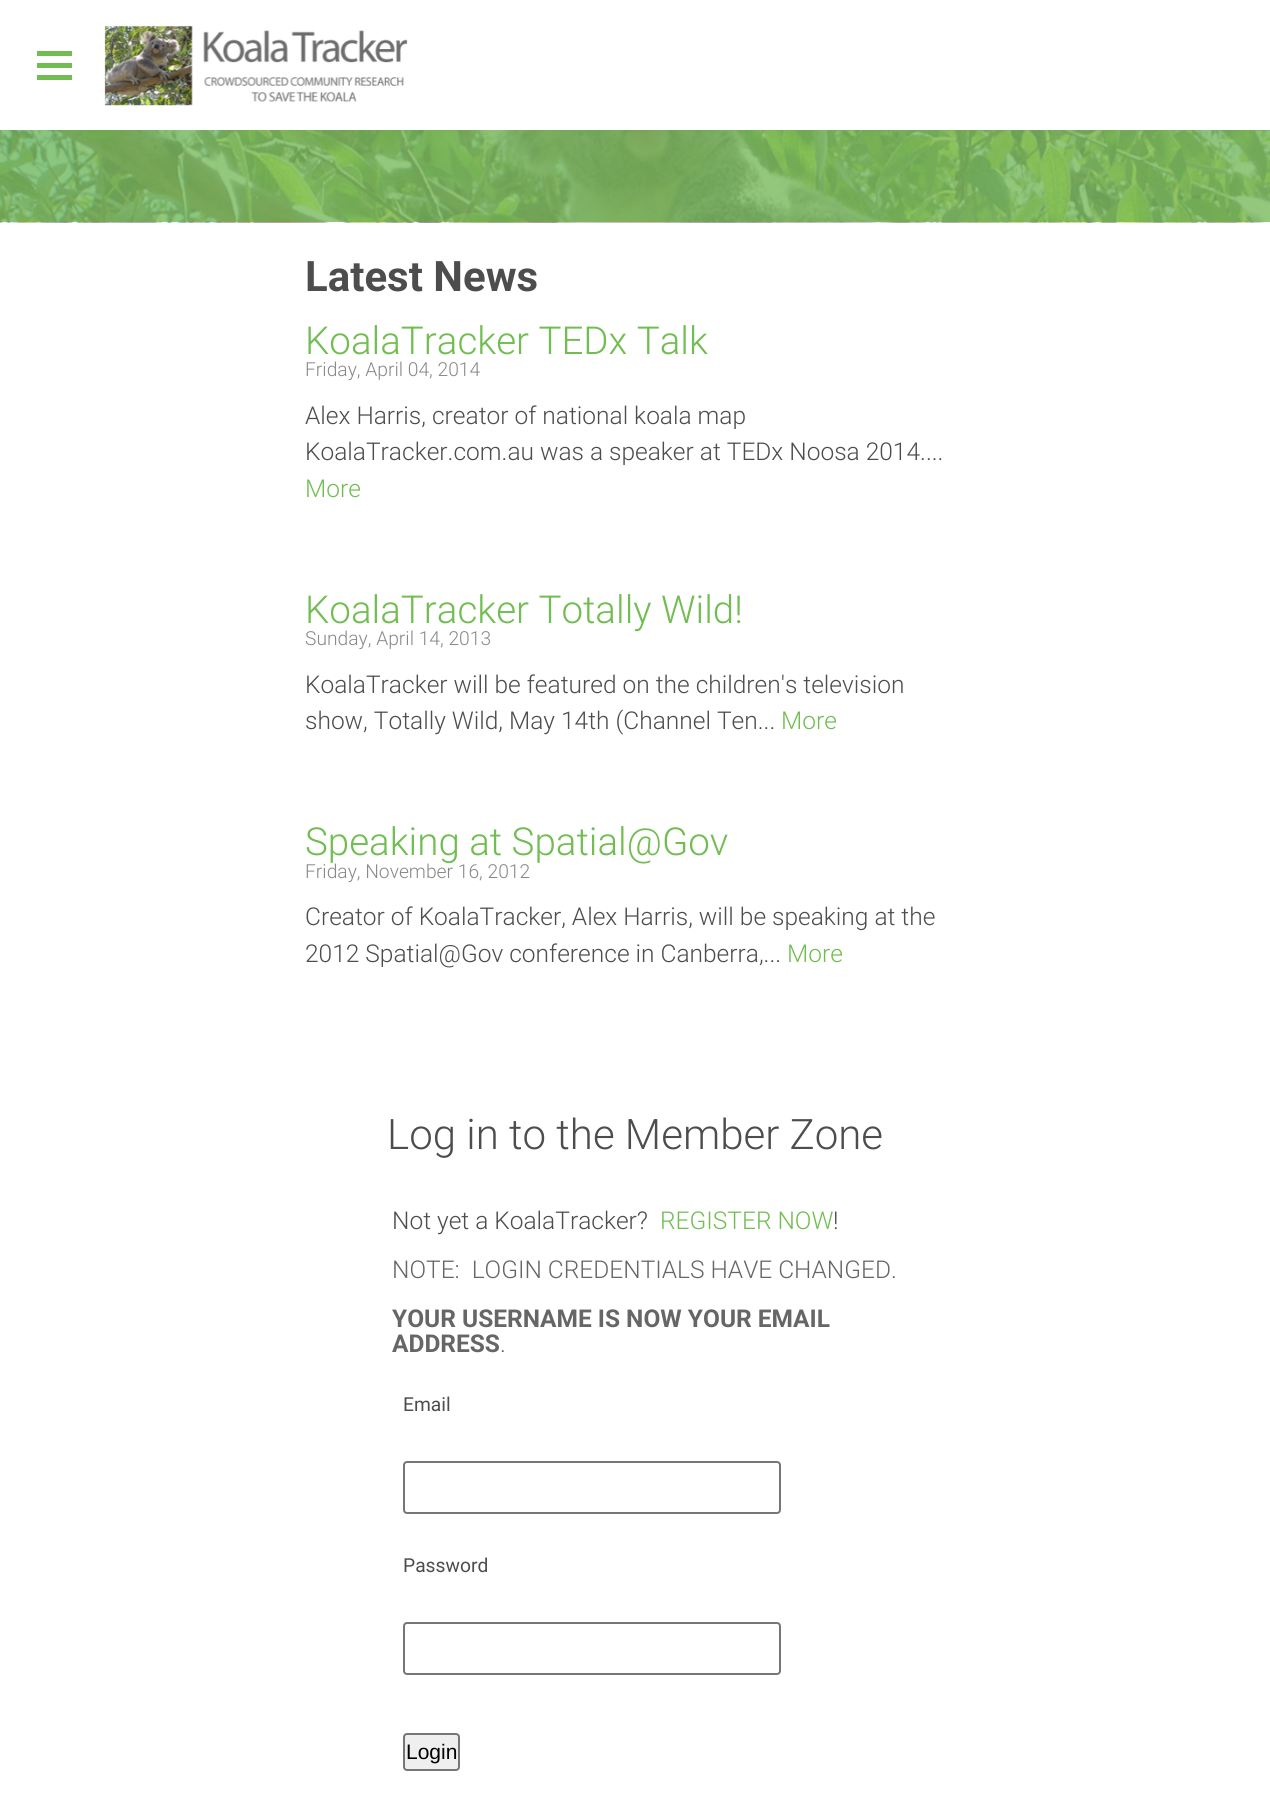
import math
import cairo

surface = cairo.ImageSurface(cairo.Format.RGB24, 1270, 1795)
ctx = cairo.Context(surface)
options = cairo.FontOptions()
options.set_hint_metrics(cairo.HintMetrics.OFF)
options.set_hint_style(cairo.HintStyle.NONE)
ctx.set_font_options(options)
ctx.set_miter_limit(4)


def ink(r, g, b):
    ctx.set_source_rgb(r / 255, g / 255, b / 255)


def write(x, y, s, family, size, color, bold=False, italic=False):
    ctx.select_font_face(family, cairo.FontSlant.ITALIC if italic else cairo.FontSlant.NORMAL, cairo.FontWeight.BOLD if bold else cairo.FontWeight.NORMAL)
    ctx.set_font_size(size)
    ink(*color)
    ctx.move_to(x, y)
    ctx.show_text(s)


def block(x, y, w, h, *color):
    ink(*color)
    ctx.rectangle(x, y, w, h)
    ctx.fill()


def round_path(x, y, w, h, r):
    ctx.new_sub_path()
    for i, (u, v) in enumerate([(x + w - r, y + h - r), (x + r, y + h - r), (x + r, y + r), (x + w - r, y + r)]):
        ctx.arc(u, v, r, i * math.pi / 2, (i + 1) * math.pi / 2)
    ctx.close_path()


def blur_box(x, y, w, h, r, blur, alpha):
    ctx.push_group_with_content(cairo.Content.ALPHA)
    ctx.set_operator(cairo.Operator.SOURCE)
    for i in range(15, -16, -2):
        e = blur * i / 6
        if min(w, h) + 2 * e > 0:
            ctx.set_source_rgba(0, 0, 0, alpha * math.erfc((i - 1) / 8.5) / 2)
            round_path(x - e, y - e, w + 2 * e, h + 2 * e, max(0, min(r + e + blur * .6, min(w, h) / 2 + e)))
            ctx.fill()
    ctx.mask(ctx.pop_group())


def paste(path, x, y, w, h):
    ctx.save()
    ctx.set_source_surface(cairo.ImageSurface.create_from_png(path), x, y)
    ctx.rectangle(x, y, w, h)
    ctx.fill()
    ctx.restore()


s1 = dict(family="Roboto", size=42, color=(77, 77, 77), bold=True)
s2 = dict(family="Roboto Light", size=38.5, color=(113, 189, 82))
s3 = dict(family="Roboto Light", size=19.25, color=(136, 136, 136))
s4 = dict(family="Roboto Light", size=24.5, color=(77, 77, 77))
s5 = dict(family="Roboto Light", size=24.5, color=(113, 189, 82))
s6 = dict(family="Roboto Light", size=42, color=(77, 77, 77))
s7 = dict(family="Roboto Light", size=24.5, color=(102, 102, 102))
s8 = dict(family="Roboto", size=24.5, color=(102, 102, 102), bold=True)
s9 = dict(family="Roboto", size=19.25, color=(77, 77, 77))
s10 = dict(family="Liberation Sans", size=21, color=(0, 0, 0))

ink(255, 255, 255)
ctx.paint()
paste("pic1.png", 0, 130, 1270, 93)
ink(99, 99, 99)
blur_box(0, 0, 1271, 130, 0, 2.5, 0.1)
block(0, 0, 1270, 130, 255, 255, 255)
block(37, 51, 35, 5, 113, 189, 82)
block(37, 63, 35, 5, 113, 189, 82)
block(37, 75, 35, 5, 113, 189, 82)
paste("pic2.png", 104, 25, 304, 81)
write(305, 291, "Latest News", **s1)
write(305, 354, "KoalaTracker TEDx Talk", **s2)
write(305, 376, "Friday, April 04, 2014", **s3)
write(305, 424, "Alex Harris, creator of national koala map", **s4)
write(305, 460, "KoalaTracker.com.au was a speaker at TEDx Noosa 2014....", **s4)
write(305, 497, "More", **s5)
write(305, 623, "KoalaTracker Totally Wild!", **s2)
write(305, 645, "Sunday, April 14, 2013", **s3)
write(305, 693, "KoalaTracker will be featured on the children's television", **s4)
write(305, 729, "show, Totally Wild, May 14th (Channel Ten...", **s4)
write(781, 729, "More", **s5)
write(305, 855, "Speaking at Spatial@Gov", **s2)
write(305, 878, "Friday, November 16, 2012", **s3)
write(305, 925, "Creator of KoalaTracker, Alex Harris, will be speaking at the", **s4)
write(305, 962, "2012 Spatial@Gov conference in Canberra,...", **s4)
write(787, 962, "More", **s5)
write(387, 1149, "Log in to the Member Zone", **s6)
write(392, 1229, "Not yet a KoalaTracker?", **s4)
write(660, 1229, "REGISTER NOW", **s5)
write(833, 1229, "!", **s4)
write(392, 1278, "NOTE:  LOGIN CREDENTIALS HAVE CHANGED.", **s7)
write(392, 1327, "YOUR USERNAME IS NOW YOUR EMAIL", **s8)
write(392, 1352, "ADDRESS", **s8)
write(500, 1352, ".", **s7)
write(403, 1411, "Email", **s9)
round_path(404, 1462, 376, 51, 3)
ink(118, 118, 118)
ctx.stroke()
write(403, 1572, "Password", **s9)
round_path(404, 1623, 376, 51, 3)
ink(118, 118, 118)
ctx.stroke()
ink(239, 239, 239)
round_path(404, 1734, 55, 36, 3)
ctx.fill_preserve()
ink(118, 118, 118)
ctx.stroke()
write(406, 1759, "Login", **s10)
surface.write_to_png("screenshot.png")
